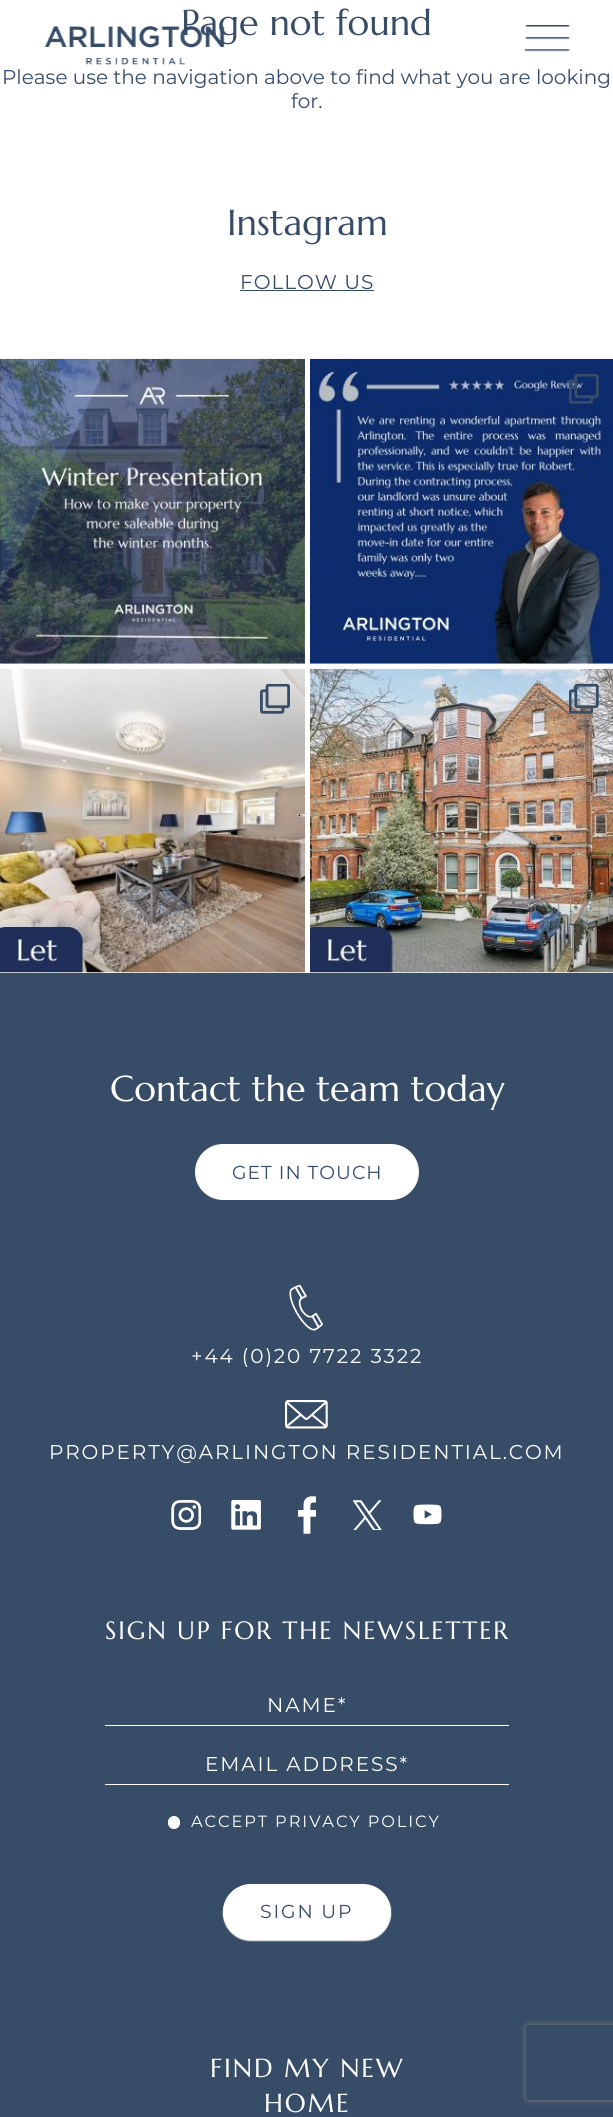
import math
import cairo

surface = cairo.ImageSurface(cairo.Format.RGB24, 613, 2117)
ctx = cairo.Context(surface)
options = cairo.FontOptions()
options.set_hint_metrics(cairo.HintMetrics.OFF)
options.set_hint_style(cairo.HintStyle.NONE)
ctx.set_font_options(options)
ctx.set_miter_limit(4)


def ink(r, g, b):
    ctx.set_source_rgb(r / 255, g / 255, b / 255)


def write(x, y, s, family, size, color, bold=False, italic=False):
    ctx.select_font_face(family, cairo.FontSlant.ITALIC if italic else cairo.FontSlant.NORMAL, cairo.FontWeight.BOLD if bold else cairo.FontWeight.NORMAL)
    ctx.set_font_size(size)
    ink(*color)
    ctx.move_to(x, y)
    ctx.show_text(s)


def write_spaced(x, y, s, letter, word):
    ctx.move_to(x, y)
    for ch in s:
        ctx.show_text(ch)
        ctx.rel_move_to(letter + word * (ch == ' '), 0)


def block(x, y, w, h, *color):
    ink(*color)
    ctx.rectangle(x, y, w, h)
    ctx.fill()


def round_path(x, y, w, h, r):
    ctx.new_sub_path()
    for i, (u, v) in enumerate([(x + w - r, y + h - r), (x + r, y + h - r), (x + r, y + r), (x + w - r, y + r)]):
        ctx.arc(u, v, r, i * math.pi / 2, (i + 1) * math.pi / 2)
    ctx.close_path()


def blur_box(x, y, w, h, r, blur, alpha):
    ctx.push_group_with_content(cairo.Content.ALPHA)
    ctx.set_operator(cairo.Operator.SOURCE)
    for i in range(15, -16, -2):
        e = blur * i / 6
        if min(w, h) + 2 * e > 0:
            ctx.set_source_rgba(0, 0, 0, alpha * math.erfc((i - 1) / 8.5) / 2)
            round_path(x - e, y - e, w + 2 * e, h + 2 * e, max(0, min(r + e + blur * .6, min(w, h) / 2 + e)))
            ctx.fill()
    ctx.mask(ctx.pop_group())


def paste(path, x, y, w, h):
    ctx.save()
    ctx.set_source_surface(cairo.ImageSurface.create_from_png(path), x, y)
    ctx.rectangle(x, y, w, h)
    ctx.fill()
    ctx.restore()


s1 = dict(family="Marcellus", size=36, color=(55, 76, 103))
s2 = dict(family="Montserrat", size=20, color=(55, 76, 103))
s3 = dict(family="Marcellus", size=36, color=(255, 255, 255))

ink(255, 255, 255)
ctx.paint()
write(181, 35, "Page not found", **s1)
write(2, 84, "Please use the navigation above to find what you are looking", **s2)
write(291, 108, "for.", **s2)
write(227, 235, "Instagram", **s1)
ctx.select_font_face("Montserrat")
ctx.set_font_size(20)
write_spaced(240, 289, "FOLLOW US", 1, 0)
block(240, 290, 134, 1, 55, 76, 103)
paste("pic1.png", 0, 358, 305, 306)
paste("pic2.png", 260, 374, 30, 30)
paste("pic3.png", 310, 358, 303, 306)
paste("pic4.png", 569, 374, 30, 30)
paste("pic5.png", 0, 669, 305, 304)
paste("pic6.png", 260, 684, 30, 30)
paste("pic7.png", 310, 668, 303, 305)
paste("pic8.png", 569, 684, 30, 30)
paste("pic9.png", 44, 26, 181, 39)
paste("pic10.png", 524, 25, 47, 27)
block(0, 973, 613, 1144, 55, 76, 103)
write(110, 1101, "Contact the team today", **s3)
round_path(195, 1144, 224, 56, 28)
ctx.fill()
ctx.select_font_face("Montserrat")
ctx.set_font_size(18.75)
ink(55, 76, 103)
write_spaced(232, 1179, "GET IN TOUCH", 1, 0)
paste("pic11.png", 289, 1284, 34, 47)
ctx.set_font_size(20)
ink(255, 255, 255)
write_spaced(191, 1363, "+44 (0)20 7722 3322", 1.9, 0)
paste("pic12.png", 285, 1400, 43, 29)
write_spaced(49, 1459, "PROPERTY@ARLINGTON RESIDENTIAL.COM", 1.9, 0)
paste("pic13.png", 171, 1500, 30, 30)
paste("pic14.png", 231, 1500, 30, 30)
paste("pic15.png", 298, 1496, 18, 38)
paste("pic16.png", 353, 1500, 29, 30)
paste("pic17.png", 413, 1504, 29, 21)
ctx.select_font_face("Marcellus")
ctx.set_font_size(25)
write_spaced(105, 1639, "SIGN UP FOR THE NEWSLETTER", 1.9, 0)
block(105, 1725, 404, 1, 255, 255, 255)
ctx.select_font_face("Montserrat")
ctx.set_font_size(20)
write_spaced(267, 1712, "NAME*", 1.9, 0)
block(105, 1784, 404, 1, 255, 255, 255)
write_spaced(205, 1771, "EMAIL ADDRESS*", 1.9, 0)
round_path(168.5, 1816.5, 11, 12, 5.5)
ctx.fill_preserve()
ctx.set_line_width(1)
ctx.stroke()
ctx.set_font_size(16.25)
write_spaced(191, 1827, "ACCEPT PRIVACY POLICY", 1.9, 0)
ink(238, 238, 238)
blur_box(223, 1885, 168, 56, 28, 0.5, 1)
ink(255, 255, 255)
round_path(223, 1884, 168, 56, 28)
ctx.fill()
ctx.set_font_size(18.75)
ink(55, 76, 103)
write_spaced(260, 1918, "SIGN UP", 1.9, 0)
ctx.save()
ctx.set_fill_rule(cairo.FillRule.EVEN_ODD)
ctx.new_path()
ctx.move_to(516, 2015)
ctx.line_to(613, 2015)
ctx.line_to(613, 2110)
ctx.line_to(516, 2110)
ctx.close_path()
ctx.move_to(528.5, 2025)
ctx.line_to(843.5, 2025)
ctx.curve_to(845, 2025, 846, 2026, 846, 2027.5)
ctx.line_to(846, 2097.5)
ctx.curve_to(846, 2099, 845, 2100, 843.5, 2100)
ctx.line_to(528.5, 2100)
ctx.curve_to(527, 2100, 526, 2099, 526, 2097.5)
ctx.line_to(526, 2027.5)
ctx.curve_to(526, 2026, 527, 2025, 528.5, 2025)
ctx.close_path()
ctx.clip()
ink(128, 128, 128)
blur_box(526, 2025, 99, 75, 2.5, 3, 1)
ctx.restore()
ctx.select_font_face("Marcellus")
ctx.set_font_size(26)
ink(255, 255, 255)
write_spaced(210, 2077, "FIND MY NEW", 1.9, 0)
write_spaced(264, 2112, "HOME", 1.9, 0)
surface.write_to_png("screenshot.png")
